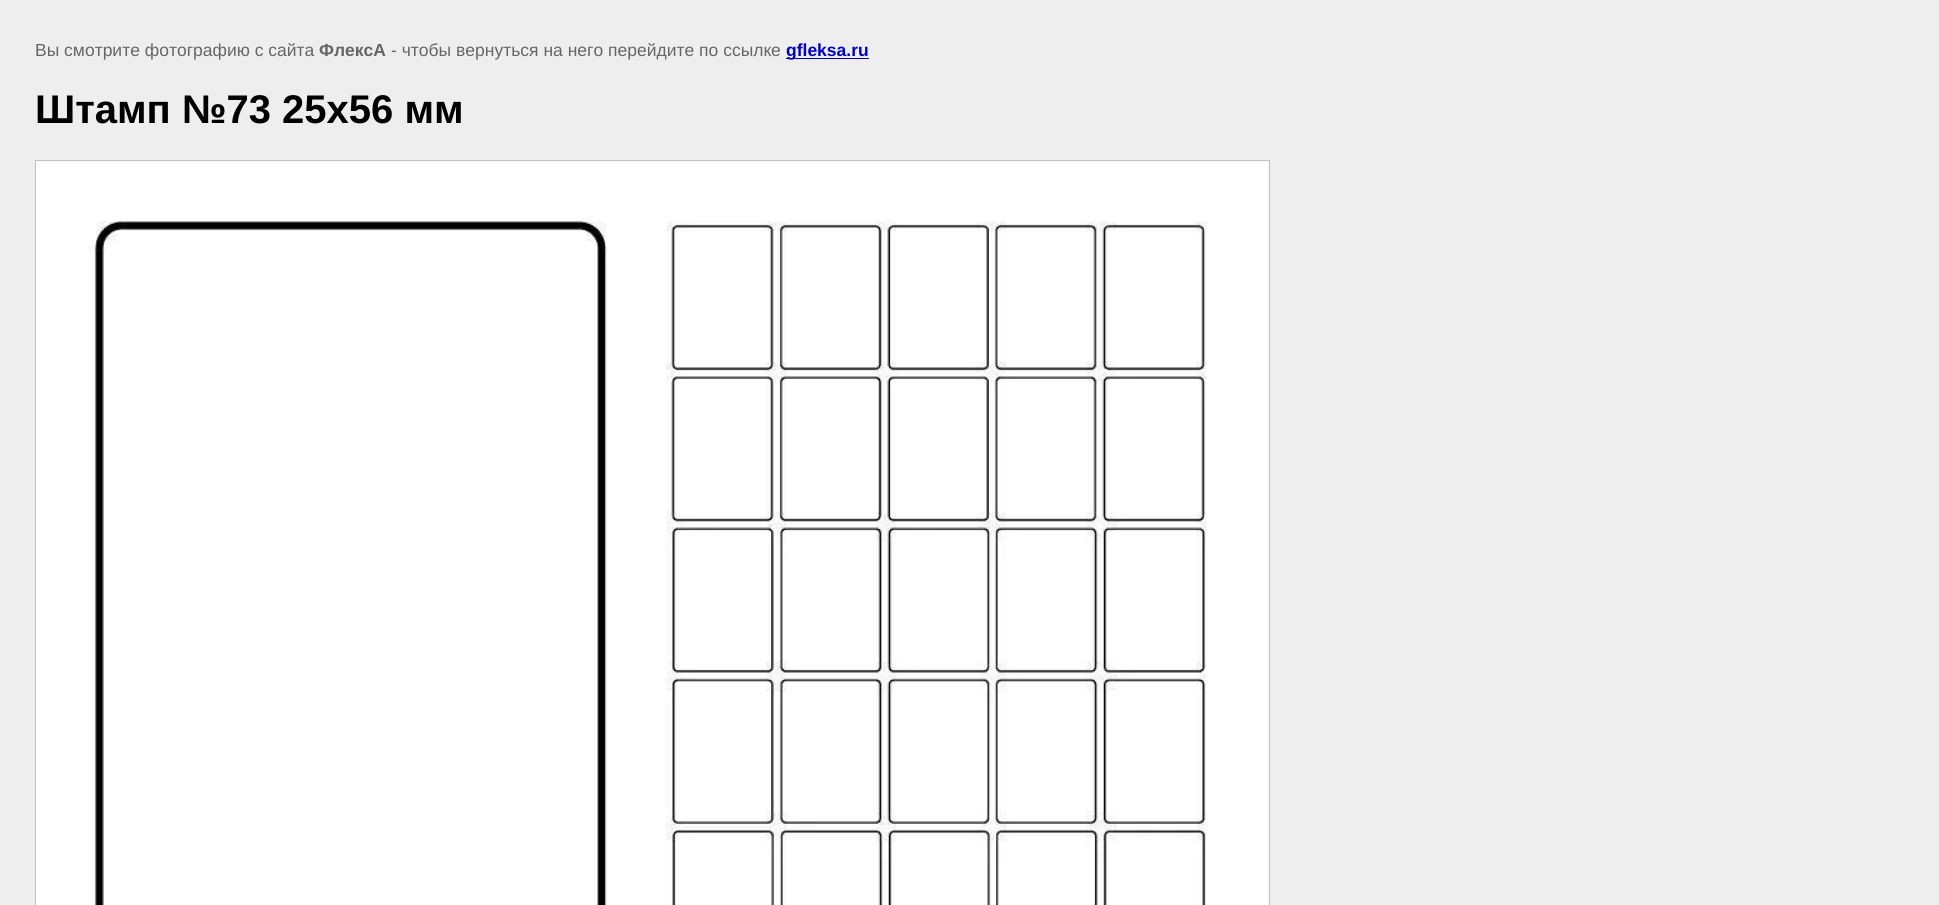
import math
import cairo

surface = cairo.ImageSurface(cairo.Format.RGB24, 1939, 905)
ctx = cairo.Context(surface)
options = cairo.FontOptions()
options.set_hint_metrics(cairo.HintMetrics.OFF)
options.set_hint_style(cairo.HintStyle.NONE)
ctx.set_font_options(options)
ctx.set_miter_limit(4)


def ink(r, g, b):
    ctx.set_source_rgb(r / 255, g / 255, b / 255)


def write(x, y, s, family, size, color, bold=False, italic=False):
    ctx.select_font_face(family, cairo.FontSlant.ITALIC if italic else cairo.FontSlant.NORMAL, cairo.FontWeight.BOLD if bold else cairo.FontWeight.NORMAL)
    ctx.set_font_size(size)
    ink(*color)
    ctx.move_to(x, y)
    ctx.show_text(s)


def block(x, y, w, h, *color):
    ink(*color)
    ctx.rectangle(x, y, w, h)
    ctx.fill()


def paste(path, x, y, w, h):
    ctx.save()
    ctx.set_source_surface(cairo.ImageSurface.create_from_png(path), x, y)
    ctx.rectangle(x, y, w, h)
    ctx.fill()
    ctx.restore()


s1 = dict(family="Liberation Sans", size=17.5, color=(102, 102, 102))
s2 = dict(family="Liberation Sans", size=17.5, color=(102, 102, 102), bold=True)
s3 = dict(family="Liberation Sans", size=17.5, color=(0, 0, 204), bold=True)
s4 = dict(family="Liberation Sans", size=40, color=(0, 0, 0), bold=True)

ink(238, 238, 238)
ctx.paint()
write(35, 56, "Вы смотрите фотографию с сайта", **s1)
write(319, 56, "ФлексА", **s2)
write(391, 56, "- чтобы вернуться на него перейдите по ссылке", **s1)
block(786, 58, 83, 1, 0, 0, 204)
write(786, 56, "gfleksa.ru", **s3)
write(35, 123, "Штамп №73 25х56 мм", **s4)
ctx.rectangle(35.5, 160.5, 1234, 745)
ink(192, 192, 192)
ctx.set_line_width(1)
ctx.stroke()
paste("pic1.png", 36, 161, 1233, 744)
surface.write_to_png("screenshot.png")
